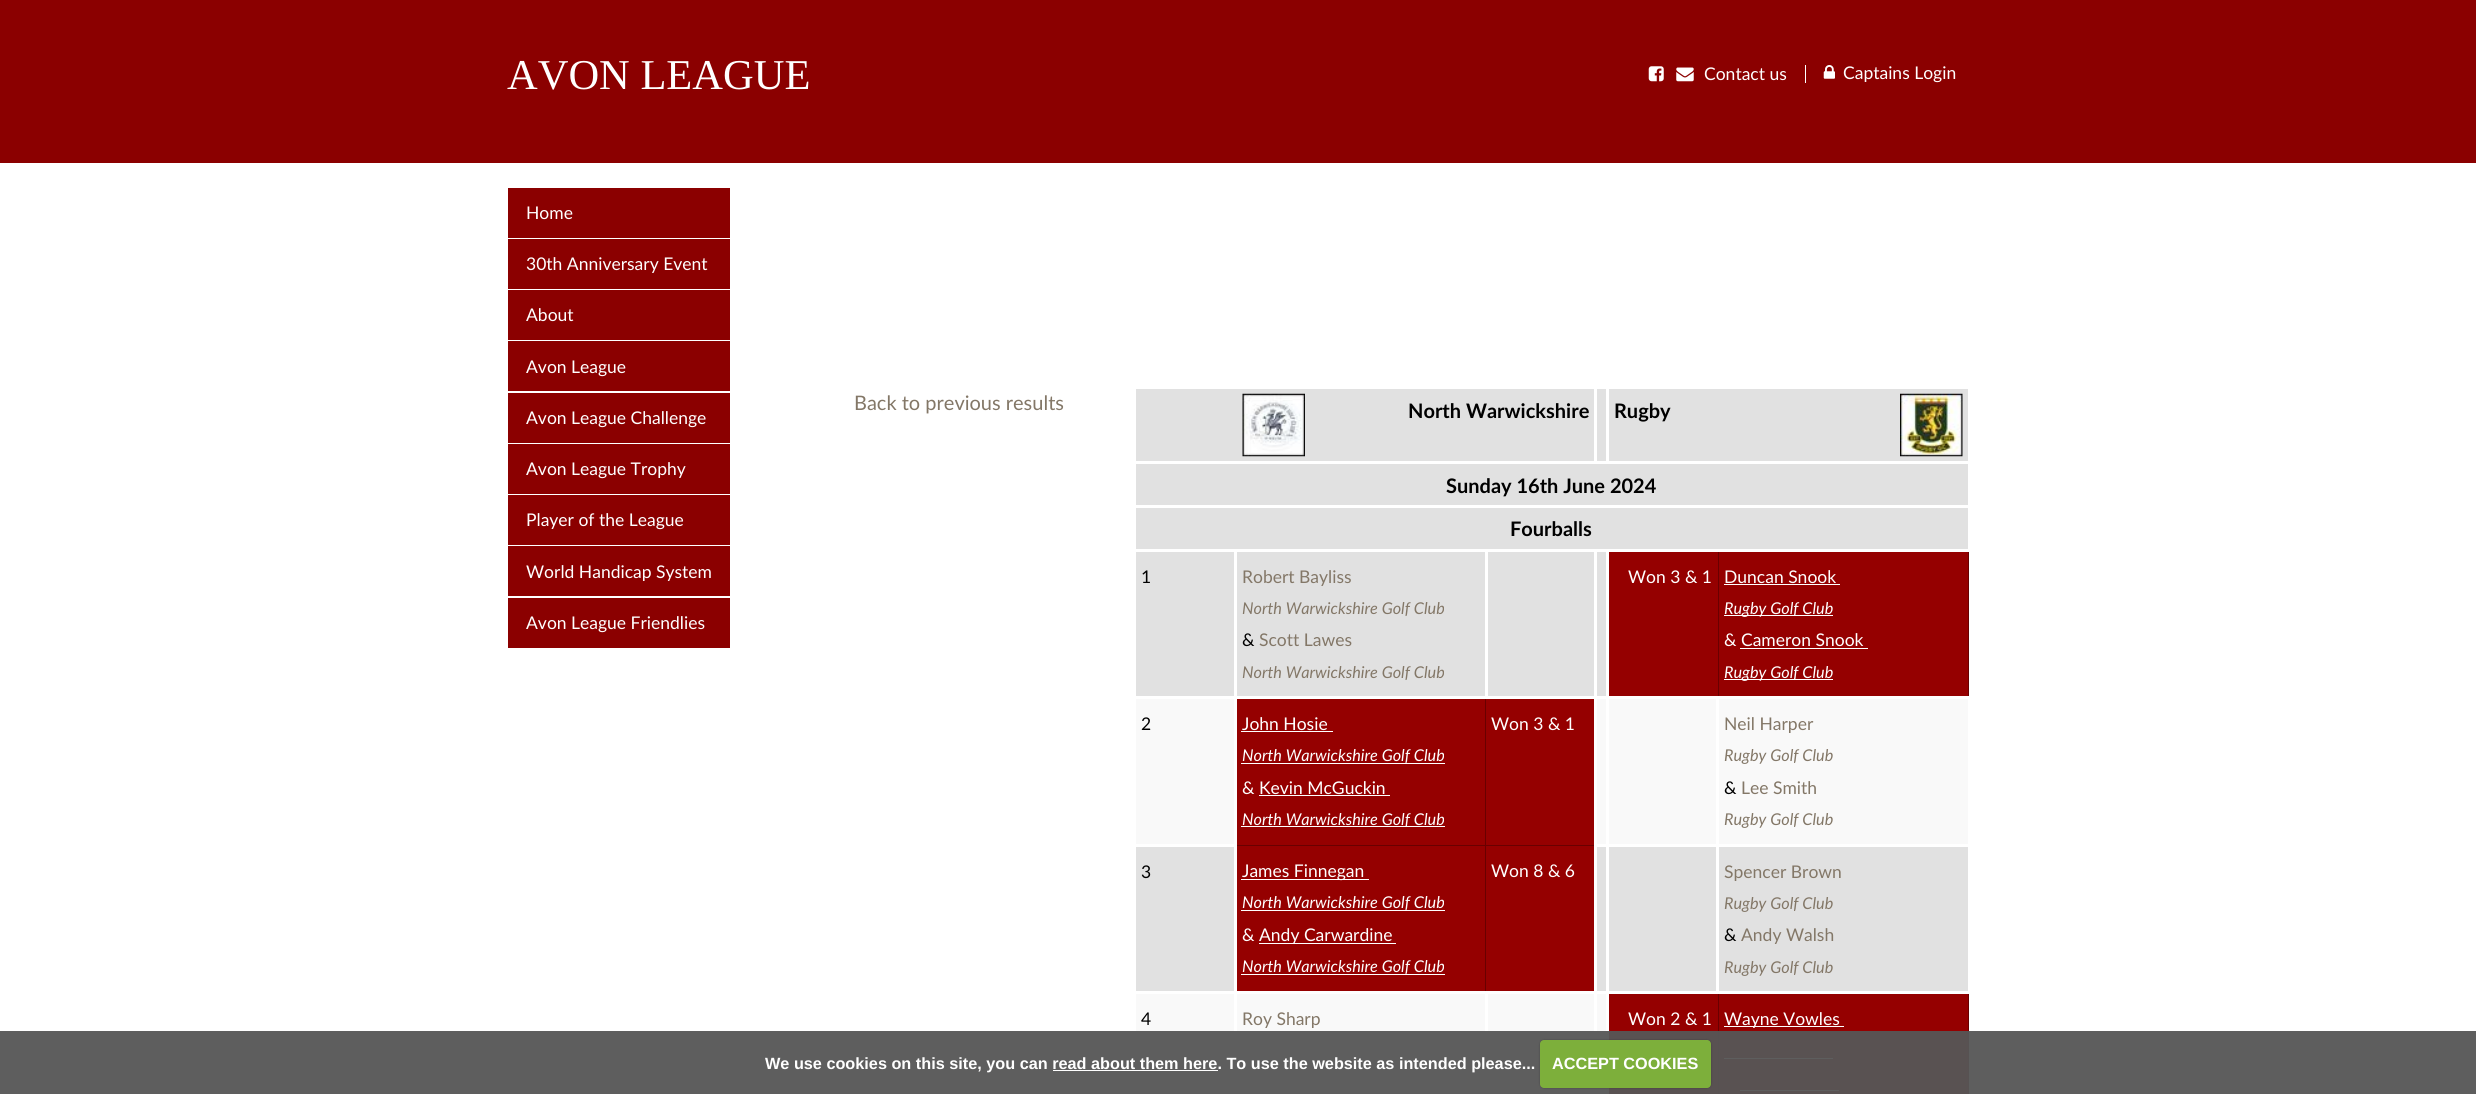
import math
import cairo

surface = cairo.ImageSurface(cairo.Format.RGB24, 2476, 1094)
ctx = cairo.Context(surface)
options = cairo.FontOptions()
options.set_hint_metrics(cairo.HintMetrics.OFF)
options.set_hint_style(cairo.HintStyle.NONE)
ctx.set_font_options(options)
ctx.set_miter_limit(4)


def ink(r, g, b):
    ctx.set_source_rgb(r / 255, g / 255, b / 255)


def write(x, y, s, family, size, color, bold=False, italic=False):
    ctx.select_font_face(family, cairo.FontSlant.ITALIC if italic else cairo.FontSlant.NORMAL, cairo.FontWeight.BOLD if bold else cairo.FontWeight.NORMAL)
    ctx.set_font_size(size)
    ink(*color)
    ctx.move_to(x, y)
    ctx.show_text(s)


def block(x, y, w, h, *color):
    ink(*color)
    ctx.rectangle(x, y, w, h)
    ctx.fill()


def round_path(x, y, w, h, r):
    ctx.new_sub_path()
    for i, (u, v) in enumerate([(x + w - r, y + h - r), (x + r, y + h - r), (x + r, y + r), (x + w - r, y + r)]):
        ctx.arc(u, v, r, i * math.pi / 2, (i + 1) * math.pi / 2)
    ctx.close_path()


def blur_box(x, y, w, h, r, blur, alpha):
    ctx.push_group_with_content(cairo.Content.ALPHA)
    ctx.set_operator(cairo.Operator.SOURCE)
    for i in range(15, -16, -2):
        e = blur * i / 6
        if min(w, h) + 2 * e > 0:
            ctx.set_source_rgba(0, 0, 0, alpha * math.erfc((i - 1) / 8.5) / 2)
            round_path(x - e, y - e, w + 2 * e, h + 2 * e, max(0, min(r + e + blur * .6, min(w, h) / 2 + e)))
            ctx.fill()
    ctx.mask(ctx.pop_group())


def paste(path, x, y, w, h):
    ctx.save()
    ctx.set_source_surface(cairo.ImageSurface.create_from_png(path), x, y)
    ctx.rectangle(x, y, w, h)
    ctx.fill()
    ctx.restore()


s1 = dict(family="Liberation Serif", size=42.5, color=(255, 255, 255))
s2 = dict(family="Lato", size=17.5, color=(255, 255, 255))
s3 = dict(family="Lato", size=20, color=(131, 119, 103))
s4 = dict(family="Lato", size=20, color=(0, 0, 0), bold=True)
s5 = dict(family="Lato", size=17.5, color=(0, 0, 0))
s6 = dict(family="Lato", size=17.5, color=(131, 119, 103))
s7 = dict(family="Lato", size=16.25, color=(131, 119, 103), italic=True)
s8 = dict(family="Lato", size=16.25, color=(255, 255, 255), italic=True)
s9 = dict(family="Liberation Sans", size=16.25, color=(255, 255, 255), bold=True)

ink(255, 255, 255)
ctx.paint()
block(0, 1031, 2476, 63, 94, 94, 94)
block(0, 0, 2476, 163, 139, 0, 0)
write(507, 89, "AVON LEAGUE", **s1)
paste("pic1.png", 1648, 66, 16, 16)
block(1805, 65, 1, 18, 255, 255, 255)
paste("pic2.png", 1676, 67, 18, 15)
write(1704, 80, "Contact us", **s2)
paste("pic3.png", 1823, 65, 12, 14)
write(1843, 79, "Captains Login", **s2)
block(508, 188, 222, 50, 139, 0, 0)
write(526, 219, "Home", **s2)
block(508, 239, 222, 50, 139, 0, 0)
write(526, 270, "30th Anniversary Event", **s2)
block(508, 290, 222, 50, 139, 0, 0)
write(526, 321, "About", **s2)
block(508, 341, 222, 50, 139, 0, 0)
write(526, 373, "Avon League", **s2)
block(508, 393, 222, 50, 139, 0, 0)
write(526, 424, "Avon League Challenge", **s2)
block(508, 444, 222, 50, 139, 0, 0)
write(526, 475, "Avon League Trophy", **s2)
block(508, 495, 222, 50, 139, 0, 0)
write(526, 526, "Player of the League", **s2)
block(508, 546, 222, 50, 139, 0, 0)
write(526, 578, "World Handicap System", **s2)
block(508, 598, 222, 50, 139, 0, 0)
write(526, 629, "Avon League Friendlies", **s2)
write(854, 410, "Back to previous results", **s3)
block(1136, 389, 832, 72, 225, 225, 225)
paste("pic4.png", 1242, 393, 63, 64)
write(1408, 418, "North Warwickshire", **s4)
block(1594, 386, 3, 78, 255, 255, 255)
block(1606, 386, 3, 78, 255, 255, 255)
write(1614, 418, "Rugby", **s4)
paste("pic5.png", 1900, 393, 63, 64)
block(1136, 464, 832, 41, 225, 225, 225)
write(1446, 493, "Sunday 16th June 2024", **s4)
block(1136, 508, 832, 41, 225, 225, 225)
block(1968, 550, 1, 149, 105, 0, 0)
block(1968, 550, 1, 1, 255, 255, 255)
block(1718, 550, 1, 149, 105, 0, 0)
block(1718, 550, 252, 2, 255, 255, 255)
write(1510, 536, "Fourballs", **s4)
block(1136, 552, 470, 144, 225, 225, 225)
write(1141, 583, "1", **s5)
block(1234, 549, 3, 150, 255, 255, 255)
write(1242, 583, "Robert Bayliss", **s6)
write(1242, 614, "North Warwickshire Golf Club", **s7)
write(1242, 646, "&", **s5)
write(1259, 646, "Scott Lawes", **s6)
write(1242, 678, "North Warwickshire Golf Club", **s7)
block(1485, 845, 111, 1, 105, 0, 0)
block(1136, 847, 832, 144, 225, 225, 225)
block(1485, 845, 1, 149, 105, 0, 0)
block(1235, 845, 251, 1, 105, 0, 0)
block(1485, 698, 1, 148, 105, 0, 0)
block(1485, 698, 1, 1, 255, 255, 255)
block(1485, 549, 3, 150, 255, 255, 255)
block(1594, 549, 3, 150, 255, 255, 255)
block(1609, 552, 109, 144, 149, 0, 0)
write(1628, 583, "Won 3 & 1", **s2)
block(1719, 552, 249, 144, 149, 0, 0)
write(1724, 583, "Duncan Snook", **s2)
block(1724, 584, 116, 1, 255, 255, 255)
block(1724, 615, 109, 1, 255, 255, 255)
write(1724, 614, "Rugby Golf Club", **s8)
write(1724, 646, "& Cameron Snook", **s2)
block(1724, 679, 109, 1, 255, 255, 255)
write(1724, 678, "Rugby Golf Club", **s8)
block(1740, 648, 128, 1, 255, 255, 255)
block(1136, 699, 98, 145, 249, 249, 249)
write(1141, 730, "2", **s5)
block(1237, 699, 248, 146, 149, 0, 0)
write(1242, 730, "John Hosie", **s2)
block(1241, 731, 92, 1, 255, 255, 255)
write(1242, 761, "North Warwickshire Golf Club", **s8)
block(1241, 763, 204, 1, 255, 255, 255)
write(1242, 794, "& Kevin McGuckin", **s2)
block(1241, 826, 204, 1, 255, 255, 255)
write(1242, 825, "North Warwickshire Golf Club", **s8)
block(1259, 795, 131, 1, 255, 255, 255)
block(1486, 699, 108, 146, 149, 0, 0)
write(1491, 730, "Won 3 & 1", **s2)
block(1597, 699, 9, 145, 249, 249, 249)
block(1609, 699, 107, 145, 249, 249, 249)
block(1719, 699, 249, 145, 249, 249, 249)
block(1716, 696, 254, 3, 255, 255, 255)
write(1724, 730, "Neil Harper", **s6)
write(1724, 761, "Rugby Golf Club", **s7)
write(1724, 794, "&", **s5)
write(1741, 794, "Lee Smith", **s6)
write(1724, 825, "Rugby Golf Club", **s7)
block(1235, 845, 1, 1, 255, 255, 255)
block(1234, 844, 3, 150, 255, 255, 255)
write(1141, 878, "3", **s5)
block(1237, 846, 248, 145, 149, 0, 0)
block(1241, 879, 128, 1, 255, 255, 255)
write(1242, 877, "James Finnegan", **s2)
write(1242, 908, "North Warwickshire Golf Club", **s8)
block(1241, 910, 204, 1, 255, 255, 255)
write(1242, 941, "&", **s2)
block(1259, 943, 137, 1, 255, 255, 255)
write(1259, 941, "Andy Carwardine", **s2)
write(1242, 972, "North Warwickshire Golf Club", **s8)
block(1241, 974, 204, 1, 255, 255, 255)
block(1486, 846, 108, 145, 149, 0, 0)
write(1491, 877, "Won 8 & 6", **s2)
block(1594, 845, 2, 1, 255, 255, 255)
block(1594, 844, 3, 150, 255, 255, 255)
block(1606, 844, 3, 150, 255, 255, 255)
block(1968, 993, 1, 38, 105, 0, 0)
block(1968, 993, 1, 1, 255, 255, 255)
block(1718, 993, 1, 38, 105, 0, 0)
block(1716, 844, 3, 150, 255, 255, 255)
write(1724, 878, "Spencer Brown", **s6)
write(1724, 909, "Rugby Golf Club", **s7)
write(1724, 941, "&", **s5)
write(1741, 941, "Andy Walsh", **s6)
write(1724, 973, "Rugby Golf Club", **s7)
block(1136, 994, 98, 37, 249, 249, 249)
write(1141, 1025, "4", **s5)
block(1237, 994, 248, 37, 249, 249, 249)
write(1242, 1025, "Roy Sharp", **s6)
block(1488, 994, 106, 37, 249, 249, 249)
block(1485, 991, 1, 3, 255, 255, 255)
block(1597, 994, 9, 37, 249, 249, 249)
block(1609, 994, 109, 37, 149, 0, 0)
block(1609, 1031, 109, 63, 89, 82, 82)
write(1628, 1025, "Won 2 & 1", **s2)
block(1719, 994, 249, 37, 149, 0, 0)
block(1719, 1031, 249, 63, 89, 82, 82)
block(1968, 1031, 1, 63, 87, 82, 82)
block(1718, 1031, 1, 63, 87, 82, 82)
block(1724, 1026, 120, 1, 255, 255, 255)
write(1724, 1025, "Wayne Vowles", **s2)
block(1724, 1058, 109, 1, 94, 94, 94)
block(1740, 1090, 99, 1, 94, 94, 94)
write(765, 1069, "We use cookies on this site, you can read about them here. To use the website as intended please...", **s9)
ink(0, 0, 0)
blur_box(1540, 1040, 171, 48, 4, 1, 0.25)
ink(125, 175, 59)
round_path(1540, 1040, 171, 48, 4)
ctx.fill()
write(1552, 1069, "ACCEPT COOKIES", **s9)
block(1053, 1070, 165, 1, 255, 255, 255)
surface.write_to_png("screenshot.png")
